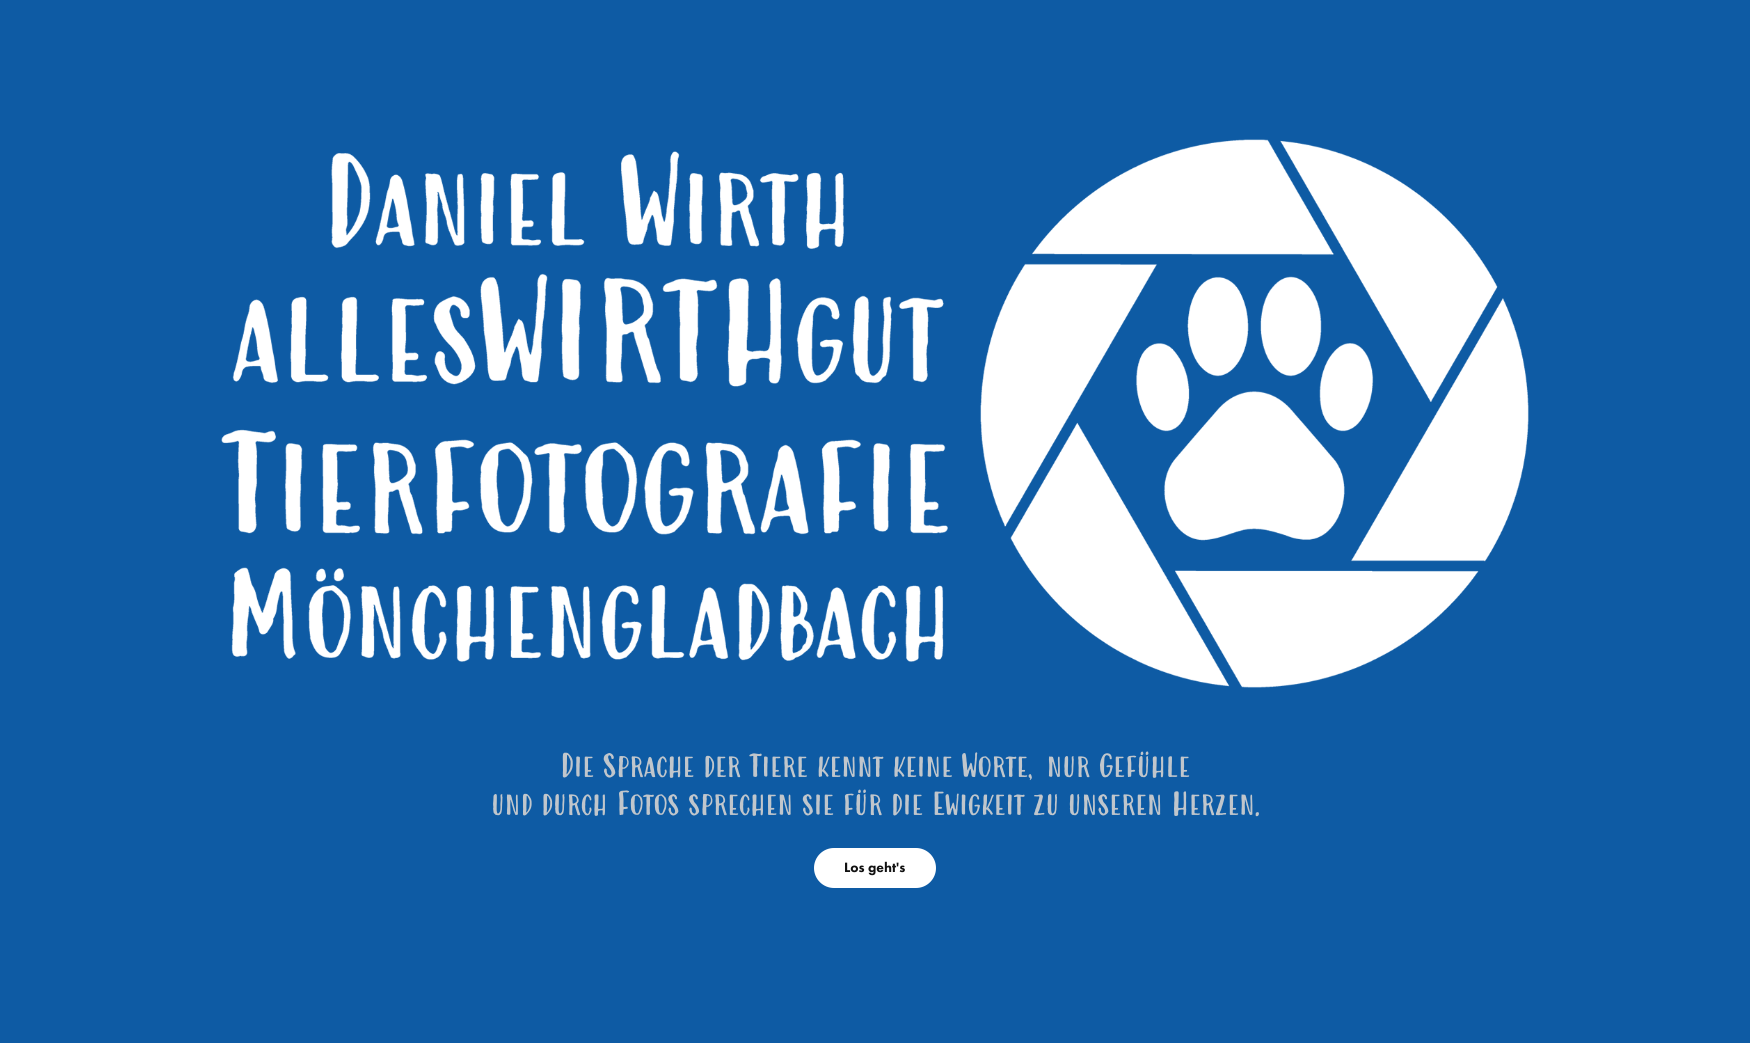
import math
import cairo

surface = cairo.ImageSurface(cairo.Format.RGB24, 1750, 1043)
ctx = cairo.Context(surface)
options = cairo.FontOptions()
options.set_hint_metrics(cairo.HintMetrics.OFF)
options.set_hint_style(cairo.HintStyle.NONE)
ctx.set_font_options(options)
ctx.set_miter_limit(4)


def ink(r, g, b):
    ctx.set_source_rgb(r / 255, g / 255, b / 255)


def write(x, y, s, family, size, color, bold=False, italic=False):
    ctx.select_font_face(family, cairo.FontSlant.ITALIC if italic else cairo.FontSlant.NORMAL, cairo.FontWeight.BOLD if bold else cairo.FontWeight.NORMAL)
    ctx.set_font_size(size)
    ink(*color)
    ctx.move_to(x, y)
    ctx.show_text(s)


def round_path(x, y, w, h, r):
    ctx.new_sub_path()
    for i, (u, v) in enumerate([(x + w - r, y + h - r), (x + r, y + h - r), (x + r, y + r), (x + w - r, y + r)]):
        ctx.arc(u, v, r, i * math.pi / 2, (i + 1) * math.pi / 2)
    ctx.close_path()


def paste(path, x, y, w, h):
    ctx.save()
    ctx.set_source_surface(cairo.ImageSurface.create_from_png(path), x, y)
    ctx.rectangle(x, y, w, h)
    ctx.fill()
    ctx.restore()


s1 = dict(family="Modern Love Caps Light", size=30, color=(192, 198, 204))
s2 = dict(family="Futura PT Black", size=14, color=(17, 17, 17))

ink(14, 91, 164)
ctx.paint()
paste("pic1.png", 221, 139, 1308, 549)
write(560, 777, "Die Sprache der Tiere kennt keine Worte, nur Gefühle", **s1)
write(491, 815, "und durch Fotos sprechen sie für die Ewigkeit zu unseren Herzen.", **s1)
ink(255, 255, 255)
round_path(814, 848, 122, 40, 20)
ctx.fill()
write(844, 872, "Los geht's", **s2)
surface.write_to_png("screenshot.png")
